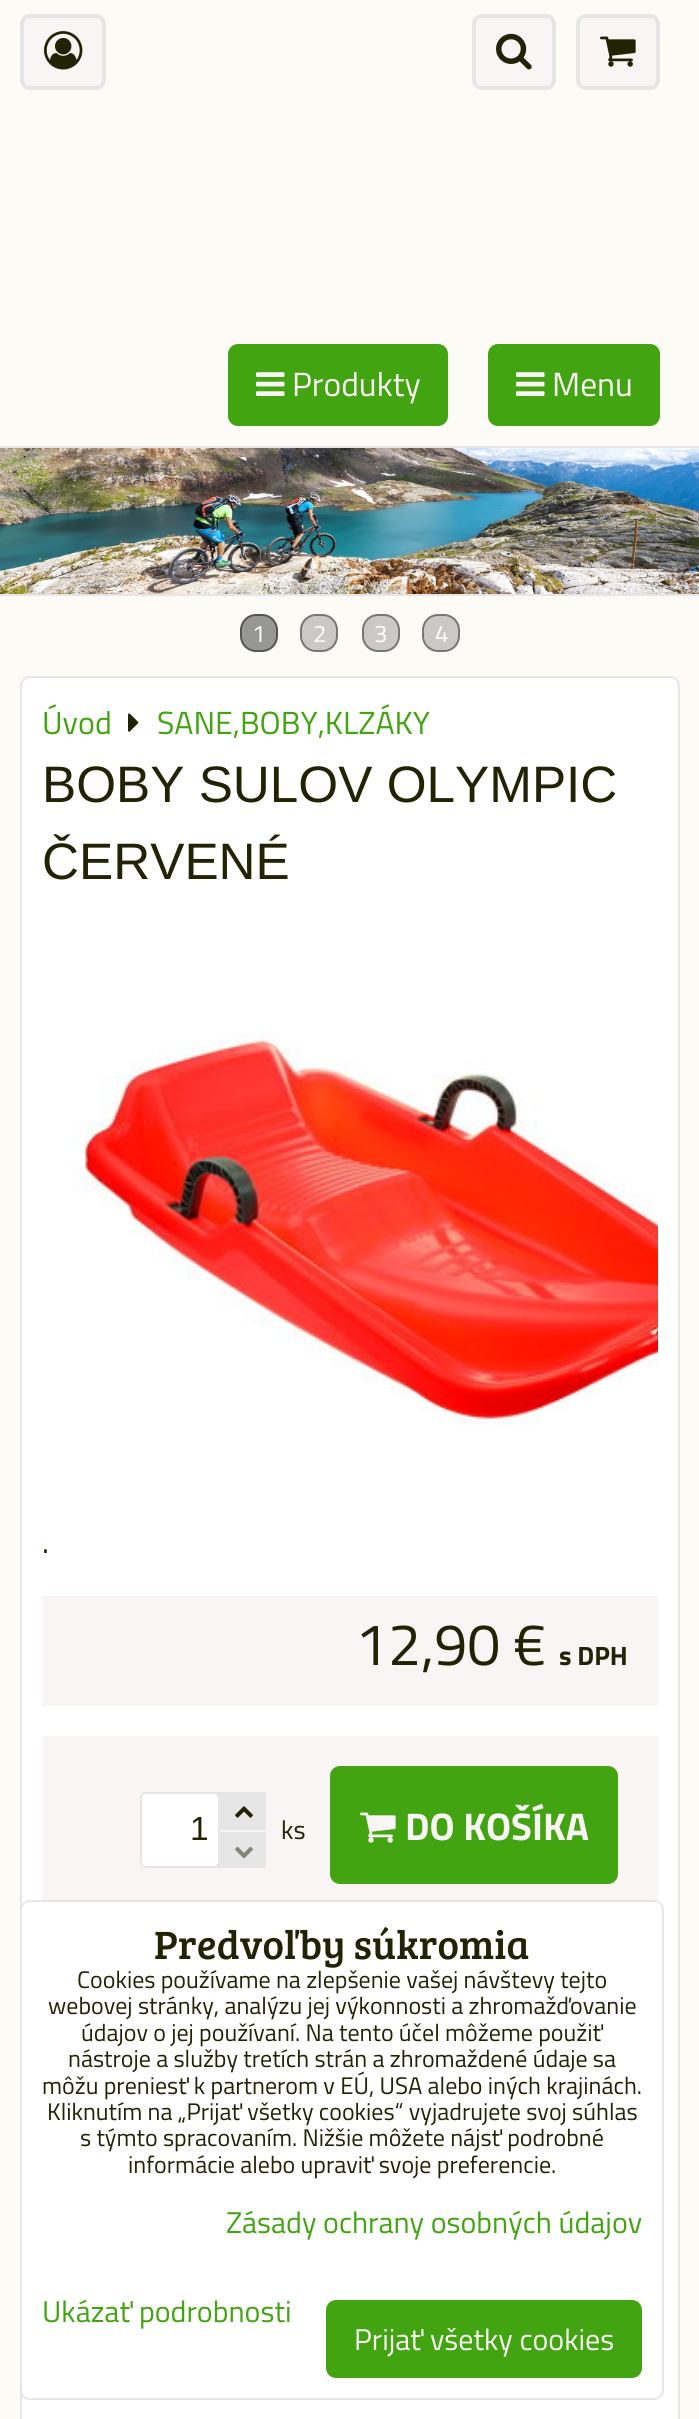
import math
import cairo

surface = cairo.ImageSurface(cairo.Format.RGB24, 699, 2419)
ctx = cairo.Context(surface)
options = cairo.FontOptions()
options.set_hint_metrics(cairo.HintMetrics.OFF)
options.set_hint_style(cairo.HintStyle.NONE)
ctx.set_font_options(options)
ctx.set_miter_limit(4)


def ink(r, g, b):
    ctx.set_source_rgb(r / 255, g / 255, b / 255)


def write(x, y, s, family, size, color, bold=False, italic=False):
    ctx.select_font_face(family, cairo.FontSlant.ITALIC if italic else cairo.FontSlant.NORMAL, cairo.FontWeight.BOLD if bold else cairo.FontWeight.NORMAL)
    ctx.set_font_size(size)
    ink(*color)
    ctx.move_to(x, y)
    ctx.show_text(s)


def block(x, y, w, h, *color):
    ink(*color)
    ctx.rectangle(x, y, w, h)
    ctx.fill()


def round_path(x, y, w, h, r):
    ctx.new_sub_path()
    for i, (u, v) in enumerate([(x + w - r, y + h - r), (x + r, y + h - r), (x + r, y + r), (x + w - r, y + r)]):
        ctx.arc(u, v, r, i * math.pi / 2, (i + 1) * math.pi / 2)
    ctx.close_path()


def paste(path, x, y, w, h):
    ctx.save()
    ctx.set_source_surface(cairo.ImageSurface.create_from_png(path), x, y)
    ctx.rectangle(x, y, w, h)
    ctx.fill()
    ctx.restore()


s1 = dict(family="Titillium Web", size=33.5, color=(249, 245, 244))
s2 = dict(family="Titillium Web", size=24, color=(255, 255, 255))
s3 = dict(family="Titillium Web", size=32, color=(67, 164, 18))
s4 = dict(family="Liberation Sans", size=51.25, color=(34, 35, 4))
s5 = dict(family="Titillium Web", size=32, color=(34, 35, 4))
s6 = dict(family="Titillium Web", size=59, color=(34, 35, 4))
s7 = dict(family="Titillium Web", size=26.5, color=(34, 35, 4), bold=True)
s8 = dict(family="Liberation Sans", size=33.5, color=(34, 35, 4))
s9 = dict(family="Titillium Web", size=26, color=(34, 35, 4))
s10 = dict(family="Titillium Web", size=38.5, color=(249, 245, 244), bold=True)
s11 = dict(family="Bree Serif", size=40.75, color=(34, 35, 4))
s12 = dict(family="Titillium Web", size=24, color=(34, 35, 4))
s13 = dict(family="Titillium Web", size=30, color=(67, 164, 18))
s14 = dict(family="Titillium Web", size=30, color=(249, 245, 244))

ink(252, 251, 246)
ctx.paint()
ink(249, 245, 244)
round_path(22, 16, 82, 72, 8)
ctx.fill_preserve()
ink(230, 230, 230)
ctx.set_line_width(4)
ctx.stroke()
paste("pic1.png", 44, 31, 39, 39)
ink(249, 245, 244)
round_path(474, 16, 80, 72, 8)
ctx.fill_preserve()
ink(230, 230, 230)
ctx.stroke()
paste("pic2.png", 496, 33, 36, 37)
ink(249, 245, 244)
round_path(578, 16, 80, 72, 8)
ctx.fill_preserve()
ink(230, 230, 230)
ctx.stroke()
paste("pic3.png", 600, 36, 36, 31)
ink(67, 164, 18)
round_path(229, 345, 218, 80, 9)
ctx.fill_preserve()
ctx.set_line_width(2)
ctx.stroke()
paste("pic4.png", 256, 372, 29, 24)
write(292, 396, "Produkty", **s1)
ink(67, 164, 18)
round_path(489, 345, 170, 80, 9)
ctx.fill_preserve()
ctx.stroke()
paste("pic4.png", 516, 372, 29, 24)
write(552, 396, "Menu", **s1)
block(0, 446, 699, 2, 230, 230, 230)
block(0, 594, 699, 2, 230, 230, 230)
paste("pic5.png", 0, 448, 699, 146)
ink(151, 151, 148)
round_path(241, 615, 36, 36, 15)
ctx.fill_preserve()
ink(85, 85, 85)
ctx.stroke()
write(252, 642, "1", **s2)
ink(202, 201, 197)
round_path(301, 615, 36, 36, 15)
ctx.fill_preserve()
ink(119, 119, 119)
ctx.stroke()
write(313, 642, "2", **s2)
ink(202, 201, 197)
round_path(363, 615, 36, 36, 15)
ctx.fill_preserve()
ink(119, 119, 119)
ctx.stroke()
write(374, 642, "3", **s2)
ink(202, 201, 197)
round_path(423, 615, 36, 36, 15)
ctx.fill_preserve()
ink(119, 119, 119)
ctx.stroke()
write(435, 642, "4", **s2)
round_path(21, 677, 658, 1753, 9)
ctx.fill_preserve()
ink(230, 230, 230)
ctx.stroke()
write(42, 734, "Úvod", **s3)
paste("pic6.png", 128, 713, 11, 19)
write(157, 734, "SANE,BOBY,KLZÁKY", **s3)
write(42, 802, "BOBY SULOV OLYMPIC", **s4)
write(42, 879, "ČERVENÉ", **s4)
paste("pic7.png", 71, 1032, 587, 394)
write(42, 1553, ".", **s5)
block(42, 1596, 616, 110, 249, 245, 244)
write(355, 1665, "12,90 €", **s6)
write(559, 1665, "s DPH", **s7)
block(42, 1736, 616, 165, 249, 245, 244)
block(214, 1792, 52, 76, 230, 230, 230)
ink(255, 255, 255)
round_path(141, 1793, 78, 74, 5)
ctx.fill_preserve()
ink(230, 230, 230)
ctx.stroke()
write(190, 1840, "1", **s8)
paste("pic8.png", 235, 1806, 18, 12)
block(220, 1830, 46, 2, 249, 245, 244)
paste("pic9.png", 235, 1846, 18, 13)
write(281, 1839, "ks", **s9)
ink(67, 164, 18)
round_path(330, 1766, 288, 118, 10)
ctx.fill()
paste("pic10.png", 360, 1812, 36, 31)
write(405, 1840, "DO KOŠÍKA", **s10)
ink(255, 255, 255)
round_path(21, 1901, 642, 498, 9)
ctx.fill_preserve()
ink(230, 230, 230)
ctx.stroke()
write(154, 1959, "Predvoľby súkromia", **s11)
write(77, 1988, "Cookies používame na zlepšenie vašej návštevy tejto", **s12)
write(48, 2014, "webovej stránky, analýzu jej výkonnosti a zhromažďovanie", **s12)
write(81, 2041, "údajov o jej používaní. Na tento účel môžeme použiť", **s12)
write(68, 2067, "nástroje a služby tretích strán a zhromaždené údaje sa", **s12)
write(42, 2094, "môžu preniesť k partnerom v EÚ, USA alebo iných krajinách.", **s12)
write(47, 2120, "Kliknutím na „Prijať všetky cookies“ vyjadrujete svoj súhlas", **s12)
write(80, 2146, "s týmto spracovaním. Nižšie môžete nájsť podrobné", **s12)
write(128, 2173, "informácie alebo upraviť svoje preferencie.", **s12)
write(226, 2233, "Zásady ochrany osobných údajov", **s13)
write(42, 2322, "Ukázať podrobnosti", **s13)
round_path(327, 2301, 314, 76, 9)
ctx.fill_preserve()
ctx.stroke()
write(354, 2350, "Prijať všetky cookies", **s14)
surface.write_to_png("screenshot.png")
